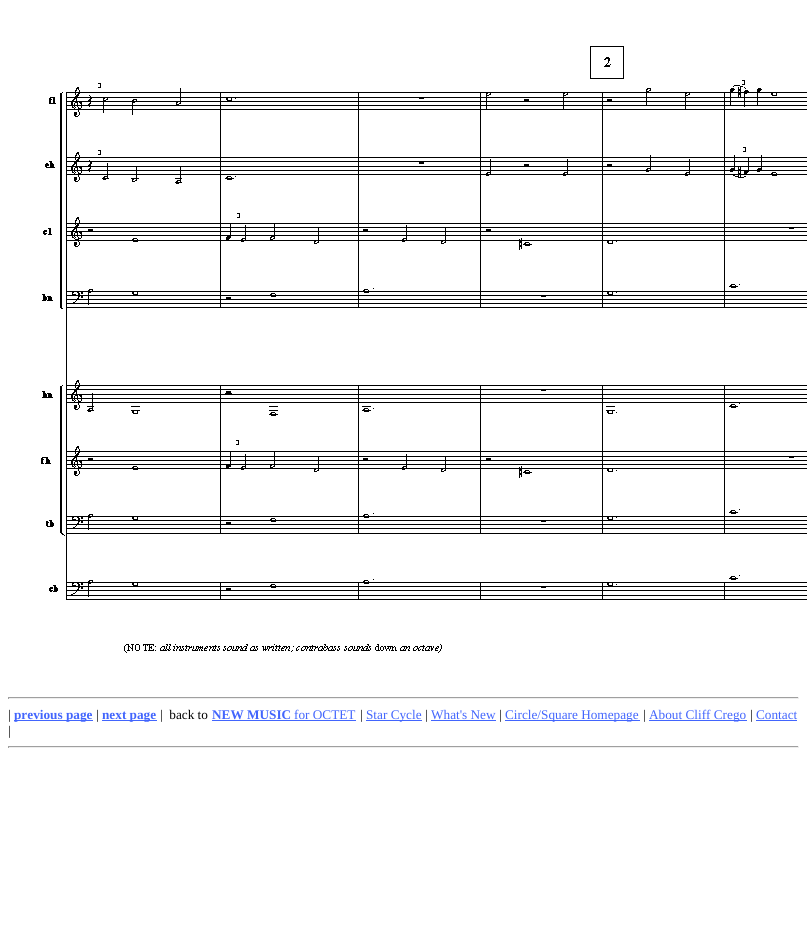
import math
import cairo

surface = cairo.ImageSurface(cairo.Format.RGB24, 807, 939)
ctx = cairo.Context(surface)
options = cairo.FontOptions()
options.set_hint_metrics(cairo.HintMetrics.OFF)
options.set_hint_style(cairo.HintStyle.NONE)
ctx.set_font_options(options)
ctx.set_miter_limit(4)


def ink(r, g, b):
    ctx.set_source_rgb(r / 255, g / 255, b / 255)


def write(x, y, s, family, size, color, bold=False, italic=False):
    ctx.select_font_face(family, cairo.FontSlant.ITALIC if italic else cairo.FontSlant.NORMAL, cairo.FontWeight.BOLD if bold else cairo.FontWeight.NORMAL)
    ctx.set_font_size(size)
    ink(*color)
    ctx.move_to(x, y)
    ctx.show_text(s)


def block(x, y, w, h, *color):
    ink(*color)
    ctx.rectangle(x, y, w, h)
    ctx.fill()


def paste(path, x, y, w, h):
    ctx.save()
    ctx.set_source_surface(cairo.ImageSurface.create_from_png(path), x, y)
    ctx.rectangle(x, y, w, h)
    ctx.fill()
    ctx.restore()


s1 = dict(family="Liberation Serif", size=13.25, color=(0, 0, 0))
s2 = dict(family="Liberation Serif", size=13.25, color=(66, 101, 253), bold=True)
s3 = dict(family="Liberation Serif", size=13.25, color=(66, 101, 253))

ink(255, 255, 255)
ctx.paint()
paste("pic1.png", 41, 46, 766, 607)
block(8, 697, 791, 1, 159, 159, 159)
block(798, 697, 1, 2, 238, 238, 238)
block(8, 698, 791, 1, 238, 238, 238)
block(8, 697, 1, 2, 159, 159, 159)
write(8, 719, "|", **s1)
block(14, 720, 79, 1, 66, 101, 253)
write(14, 719, "previous page", **s2)
write(96, 719, "|", **s1)
block(102, 720, 55, 1, 66, 101, 253)
write(102, 719, "next page", **s2)
write(160, 719, "|  back to", **s1)
write(212, 719, "NEW MUSIC", **s2)
block(212, 720, 144, 1, 66, 101, 253)
write(294, 719, "for OCTET", **s3)
write(360, 719, "|", **s1)
block(366, 720, 56, 1, 66, 101, 253)
write(366, 719, "Star Cycle", **s3)
write(425, 719, "|", **s1)
write(431, 719, "What's New", **s3)
block(431, 720, 65, 1, 66, 101, 253)
write(499, 719, "|", **s1)
block(505, 720, 135, 1, 66, 101, 253)
write(505, 719, "Circle/Square Homepage", **s3)
write(643, 719, "|", **s1)
block(649, 720, 98, 1, 66, 101, 253)
write(649, 719, "About Cliff Crego", **s3)
write(750, 719, "|", **s1)
write(756, 719, "Contact", **s3)
block(756, 720, 41, 1, 66, 101, 253)
write(8, 735, "|", **s1)
block(8, 746, 791, 1, 159, 159, 159)
block(798, 746, 1, 2, 238, 238, 238)
block(8, 747, 791, 1, 238, 238, 238)
block(8, 746, 1, 2, 159, 159, 159)
surface.write_to_png("screenshot.png")
